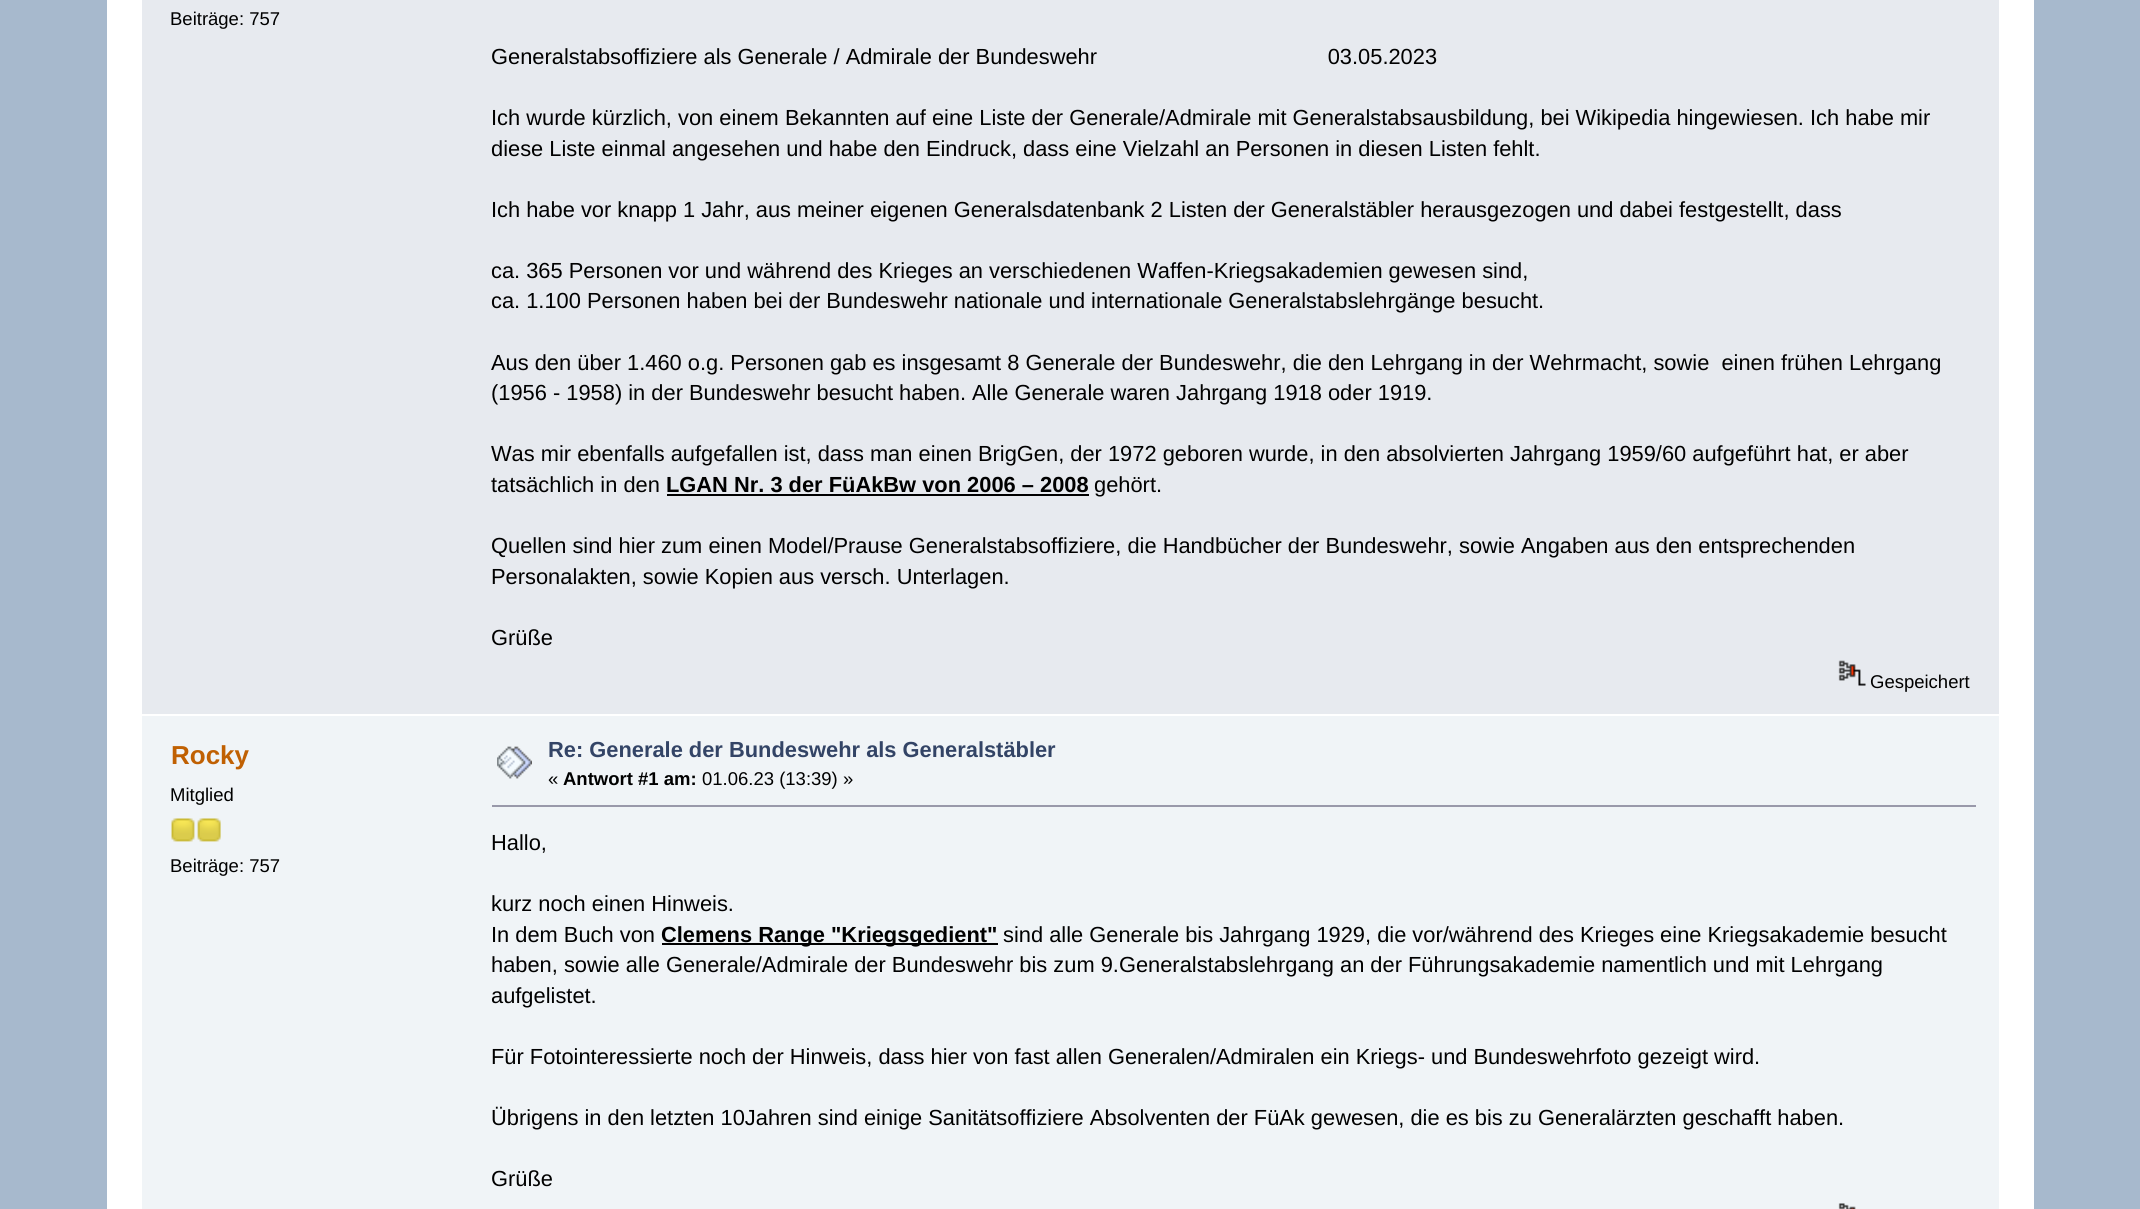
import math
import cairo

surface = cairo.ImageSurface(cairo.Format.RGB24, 2140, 1209)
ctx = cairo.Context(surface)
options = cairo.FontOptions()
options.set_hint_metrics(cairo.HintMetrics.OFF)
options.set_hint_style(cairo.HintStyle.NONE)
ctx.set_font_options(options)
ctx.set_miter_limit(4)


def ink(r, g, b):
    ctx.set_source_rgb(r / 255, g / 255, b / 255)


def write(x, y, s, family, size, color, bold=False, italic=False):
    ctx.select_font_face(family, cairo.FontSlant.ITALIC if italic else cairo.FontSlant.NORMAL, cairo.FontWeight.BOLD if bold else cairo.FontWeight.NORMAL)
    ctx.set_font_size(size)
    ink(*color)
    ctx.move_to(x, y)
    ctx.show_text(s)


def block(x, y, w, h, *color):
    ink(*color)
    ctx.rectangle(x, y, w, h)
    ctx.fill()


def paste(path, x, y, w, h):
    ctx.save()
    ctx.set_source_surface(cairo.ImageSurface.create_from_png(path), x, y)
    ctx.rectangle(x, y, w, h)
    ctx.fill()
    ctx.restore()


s1 = dict(family="Liberation Sans", size=18.5, color=(0, 0, 0))
s2 = dict(family="Liberation Sans", size=21.85, color=(0, 0, 0))
s3 = dict(family="Liberation Sans", size=21.85, color=(0, 0, 0), bold=True)
s4 = dict(family="Liberation Sans", size=26, color=(192, 96, 2), bold=True)
s5 = dict(family="Liberation Sans", size=21.85, color=(51, 68, 102), bold=True)
s6 = dict(family="Liberation Sans", size=18.5, color=(0, 0, 0), bold=True)

ink(167, 185, 205)
ctx.paint()
block(107, 0, 1927, 1209, 255, 255, 255)
block(142, 0, 1857, 714, 231, 234, 239)
write(170, 25, "Beiträge: 757", **s1)
write(491, 64, "Generalstabsoffiziere als Generale / Admirale der Bundeswehr                                      03.05.2023", **s2)
write(491, 125, "Ich wurde kürzlich, von einem Bekannten auf eine Liste der Generale/Admirale mit Generalstabsausbildung, bei Wikipedia hingewiesen. Ich habe mir", **s2)
write(491, 156, "diese Liste einmal angesehen und habe den Eindruck, dass eine Vielzahl an Personen in diesen Listen fehlt.", **s2)
write(491, 217, "Ich habe vor knapp 1 Jahr, aus meiner eigenen Generalsdatenbank 2 Listen der Generalstäbler herausgezogen und dabei festgestellt, dass", **s2)
write(491, 278, "ca. 365 Personen vor und während des Krieges an verschiedenen Waffen-Kriegsakademien gewesen sind,", **s2)
write(491, 308, "ca. 1.100 Personen haben bei der Bundeswehr nationale und internationale Generalstabslehrgänge besucht.", **s2)
write(491, 370, "Aus den über 1.460 o.g. Personen gab es insgesamt 8 Generale der Bundeswehr, die den Lehrgang in der Wehrmacht, sowie  einen frühen Lehrgang", **s2)
write(491, 400, "(1956 - 1958) in der Bundeswehr besucht haben. Alle Generale waren Jahrgang 1918 oder 1919.", **s2)
write(491, 461, "Was mir ebenfalls aufgefallen ist, dass man einen BrigGen, der 1972 geboren wurde, in den absolvierten Jahrgang 1959/60 aufgeführt hat, er aber", **s2)
write(491, 492, "tatsächlich in den", **s2)
write(666, 492, "LGAN Nr. 3 der FüAkBw von 2006 – 2008", **s3)
block(667, 494, 422, 2, 0, 0, 0)
write(1094, 492, "gehört.", **s2)
write(491, 553, "Quellen sind hier zum einen Model/Prause Generalstabsoffiziere, die Handbücher der Bundeswehr, sowie Angaben aus den entsprechenden", **s2)
write(491, 584, "Personalakten, sowie Kopien aus versch. Unterlagen.", **s2)
write(491, 645, "Grüße", **s2)
paste("pic1.png", 1838, 660, 28, 26)
write(1870, 688, "Gespeichert", **s1)
block(142, 716, 1857, 493, 240, 244, 247)
write(171, 764, "Rocky", **s4)
write(170, 801, "Mitglied", **s1)
paste("pic2.png", 171, 818, 24, 24)
paste("pic3.png", 197, 818, 24, 24)
write(170, 872, "Beiträge: 757", **s1)
paste("pic4.png", 497, 746, 35, 33)
write(548, 757, "Re: Generale der Bundeswehr als Generalstäbler", **s5)
write(548, 785, "«", **s1)
write(563, 785, "Antwort #1 am:", **s6)
write(702, 785, "01.06.23 (13:39) »", **s1)
block(492, 805, 1484, 2, 153, 153, 170)
write(491, 850, "Hallo,", **s2)
write(491, 911, "kurz noch einen Hinweis.", **s2)
write(491, 942, "In dem Buch von", **s2)
block(662, 943, 336, 2, 0, 0, 0)
write(661, 942, "Clemens Range \"Kriegsgedient\"", **s3)
write(1003, 942, "sind alle Generale bis Jahrgang 1929, die vor/während des Krieges eine Kriegsakademie besucht", **s2)
write(491, 972, "haben, sowie alle Generale/Admirale der Bundeswehr bis zum 9.Generalstabslehrgang an der Führungsakademie namentlich und mit Lehrgang", **s2)
write(491, 1003, "aufgelistet.", **s2)
write(491, 1064, "Für Fotointeressierte noch der Hinweis, dass hier von fast allen Generalen/Admiralen ein Kriegs- und Bundeswehrfoto gezeigt wird.", **s2)
write(491, 1125, "Übrigens in den letzten 10Jahren sind einige Sanitätsoffiziere Absolventen der FüAk gewesen, die es bis zu Generalärzten geschafft haben.", **s2)
write(491, 1186, "Grüße", **s2)
paste("pic5.png", 1838, 1203, 18, 6)
surface.write_to_png("screenshot.png")
